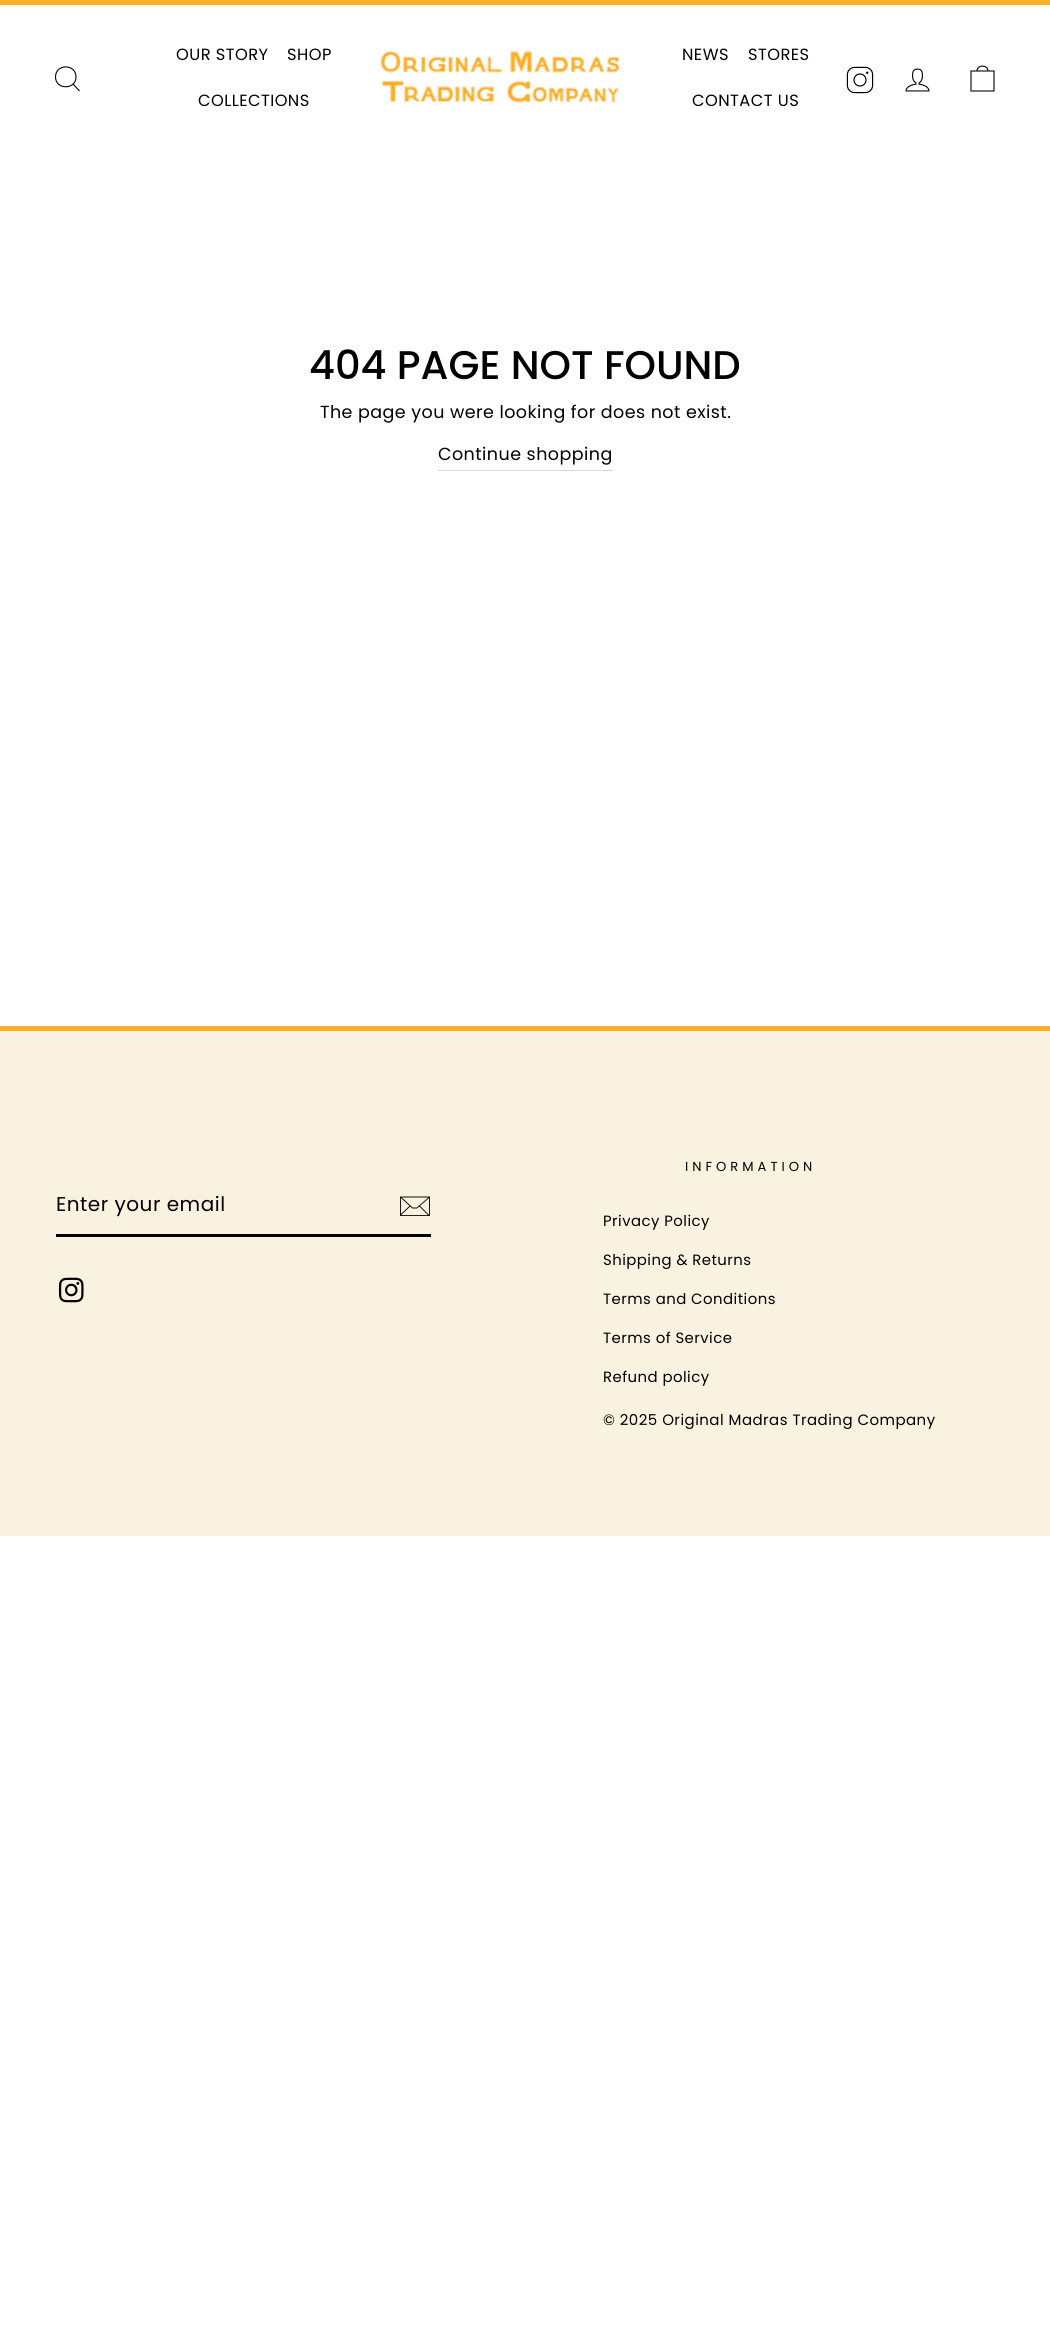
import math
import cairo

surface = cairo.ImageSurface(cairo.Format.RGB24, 1050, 2329)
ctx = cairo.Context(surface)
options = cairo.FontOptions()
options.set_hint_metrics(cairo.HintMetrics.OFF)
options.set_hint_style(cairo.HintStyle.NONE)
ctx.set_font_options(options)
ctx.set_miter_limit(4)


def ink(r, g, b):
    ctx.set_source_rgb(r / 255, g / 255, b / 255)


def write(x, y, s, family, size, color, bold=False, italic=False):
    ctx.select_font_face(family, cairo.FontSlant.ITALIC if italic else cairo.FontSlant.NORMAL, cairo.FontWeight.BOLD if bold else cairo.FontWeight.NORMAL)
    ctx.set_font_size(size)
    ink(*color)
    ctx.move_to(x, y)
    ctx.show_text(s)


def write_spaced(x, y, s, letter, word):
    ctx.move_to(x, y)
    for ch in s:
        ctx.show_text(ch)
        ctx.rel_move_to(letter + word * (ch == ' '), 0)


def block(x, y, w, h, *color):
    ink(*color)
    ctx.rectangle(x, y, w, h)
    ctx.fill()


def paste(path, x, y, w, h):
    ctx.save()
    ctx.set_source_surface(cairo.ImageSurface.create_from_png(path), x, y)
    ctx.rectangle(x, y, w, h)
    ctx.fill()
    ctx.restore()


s1 = dict(family="Poppins Medium", size=40, color=(0, 0, 0))

ink(255, 255, 255)
ctx.paint()
block(0, 0, 1050, 5, 251, 174, 38)
ctx.new_path()
ctx.move_to(76, 77)
ctx.curve_to(76, 90, 55.5, 90, 55.5, 77)
ctx.curve_to(55.5, 63.5, 76, 63.5, 76, 77)
ctx.close_path()
ctx.move_to(79.5, 91)
ctx.line_to(73, 84)
ink(0, 0, 0)
ctx.set_line_width(1.1)
ctx.stroke()
ctx.select_font_face("Poppins")
ctx.set_font_size(16.25)
write_spaced(176, 60, "OUR STORY", 0.45, 0)
write_spaced(287, 60, "SHOP", 0.45, 0)
write_spaced(198, 106, "COLLECTIONS", 0.45, 0)
paste("pic1.png", 381, 51, 238, 52)
write_spaced(682, 60, "NEWS", 0.45, 0)
write_spaced(748, 60, "STORES", 0.45, 0)
write_spaced(692, 106, "CONTACT US", 0.45, 0)
paste("pic2.png", 846, 66, 28, 28)
paste("pic3.png", 905, 68, 25, 24)
ctx.new_path()
ctx.move_to(971, 71)
ctx.line_to(994, 71)
ctx.line_to(994, 91)
ctx.line_to(971, 91)
ctx.close_path()
ctx.move_to(977, 71)
ctx.curve_to(977, 64.5, 988, 64.5, 988, 71)
ctx.stroke()
write(309, 379, "404 PAGE NOT FOUND", **s1)
ctx.select_font_face("Poppins")
ctx.set_font_size(17.5)
write_spaced(320, 418, "The page you were looking for does not exist.", 0.45, 0)
block(438, 470, 175, 1, 217, 217, 217)
ink(0, 0, 0)
write_spaced(438, 460, "Continue shopping", 0.45, 0)
block(0, 1031, 1050, 505, 250, 242, 224)
block(0, 1026, 1050, 5, 252, 174, 38)
block(56, 1234, 375, 3, 0, 0, 0)
ctx.set_font_size(20)
write_spaced(56, 1211, "Enter your email", 0.5, 0)
ctx.new_path()
ctx.move_to(429.5, 1215.5)
ctx.line_to(400.5, 1215.5)
ctx.line_to(400.5, 1197)
ctx.line_to(429.5, 1197)
ctx.close_path()
ctx.move_to(400.5, 1197)
ctx.line_to(412.5, 1208)
ctx.line_to(417, 1208)
ctx.line_to(429.5, 1197)
ctx.move_to(410, 1206)
ctx.line_to(400.5, 1215)
ctx.move_to(429, 1215.5)
ctx.line_to(419.5, 1206)
ctx.set_line_width(0.9)
ctx.stroke()
paste("pic4.png", 58, 1277, 26, 26)
ctx.set_font_size(13.1)
write_spaced(685, 1171, "INFORMATION", 4, 0)
ctx.set_font_size(14.9)
write_spaced(603, 1226, "Privacy Policy", 0.45, 0)
write_spaced(603, 1265, "Shipping & Returns", 0.45, 0)
write_spaced(603, 1304, "Terms and Conditions", 0.45, 0)
write_spaced(603, 1343, "Terms of Service", 0.45, 0)
write_spaced(603, 1382, "Refund policy", 0.45, 0)
ctx.set_font_size(15)
write_spaced(603, 1425, "© 2025 Original Madras Trading Company", 0.45, 0)
surface.write_to_png("screenshot.png")
